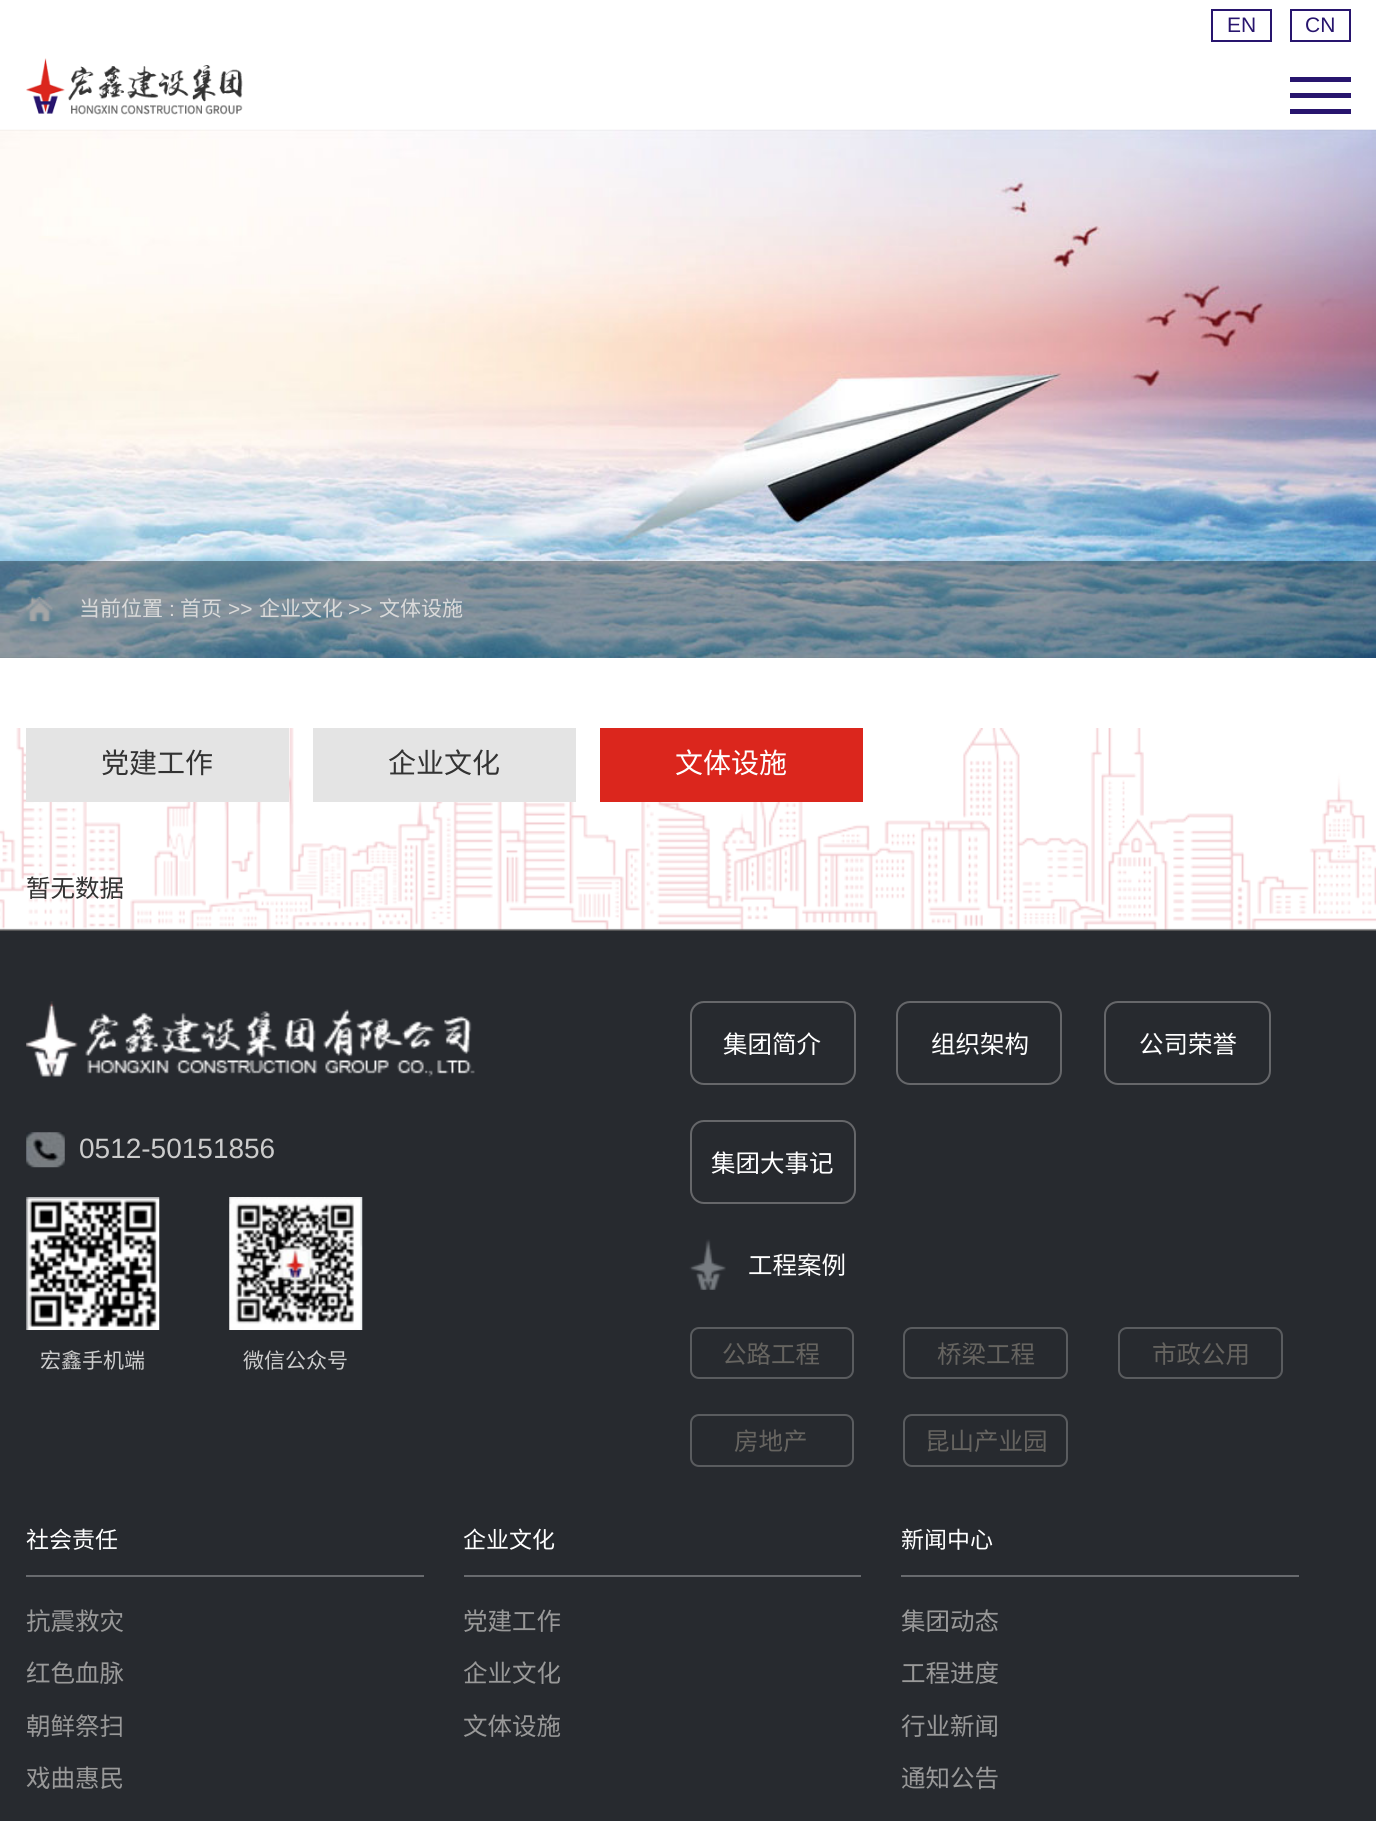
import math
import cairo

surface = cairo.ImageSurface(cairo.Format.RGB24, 1376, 1821)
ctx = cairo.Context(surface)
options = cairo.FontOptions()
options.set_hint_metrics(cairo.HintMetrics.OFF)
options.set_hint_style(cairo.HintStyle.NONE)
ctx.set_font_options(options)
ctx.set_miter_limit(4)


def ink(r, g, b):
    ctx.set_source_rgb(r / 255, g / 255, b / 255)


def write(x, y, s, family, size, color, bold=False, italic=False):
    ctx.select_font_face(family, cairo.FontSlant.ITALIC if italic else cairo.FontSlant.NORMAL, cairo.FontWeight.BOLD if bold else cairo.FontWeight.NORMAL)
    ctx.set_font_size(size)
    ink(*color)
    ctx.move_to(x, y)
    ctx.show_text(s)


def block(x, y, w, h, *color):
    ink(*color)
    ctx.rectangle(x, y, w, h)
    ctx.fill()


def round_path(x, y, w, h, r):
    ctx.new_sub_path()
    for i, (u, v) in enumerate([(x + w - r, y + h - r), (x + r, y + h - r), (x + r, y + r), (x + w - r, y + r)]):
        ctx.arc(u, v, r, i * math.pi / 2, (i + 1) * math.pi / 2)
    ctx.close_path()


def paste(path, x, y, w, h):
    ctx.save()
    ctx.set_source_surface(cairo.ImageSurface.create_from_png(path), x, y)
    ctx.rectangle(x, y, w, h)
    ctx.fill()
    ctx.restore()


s1 = dict(family="Liberation Sans", size=21, color=(40, 21, 110))
s2 = dict(family="Noto Sans CJK SC", size=21, color=(218, 218, 218))
s3 = dict(family="Liberation Sans", size=21, color=(218, 218, 218))
s4 = dict(family="Noto Sans CJK SC", size=28, color=(51, 51, 51))
s5 = dict(family="Noto Sans CJK SC", size=28, color=(255, 255, 255))
s6 = dict(family="Noto Sans CJK SC", size=24.5, color=(51, 51, 51))
s7 = dict(family="Liberation Sans", size=28, color=(204, 204, 204))
s8 = dict(family="Noto Sans CJK SC", size=21, color=(204, 204, 204))
s9 = dict(family="Noto Sans CJK SC", size=24.5, color=(255, 255, 255))
s10 = dict(family="Noto Sans CJK SC", size=24.5, color=(102, 100, 96))
s11 = dict(family="Noto Sans CJK SC", size=23, color=(255, 255, 255))
s12 = dict(family="Noto Sans CJK SC", size=24.5, color=(153, 153, 153))

ink(255, 255, 255)
ctx.paint()
ctx.rectangle(1212, 10, 59, 31)
ink(40, 21, 110)
ctx.stroke()
write(1227, 32, "EN", **s1)
ctx.rectangle(1291, 10, 59, 31)
ctx.stroke()
write(1305, 32, "CN", **s1)
paste("pic2.png", 0, 129, 1376, 529)
ctx.set_source_rgba(1, 1, 1, 0.45)
ctx.rectangle(0, 129, 1376, 1)
ctx.fill()
paste("pic1.png", 26, 58, 217, 57)
block(1290, 77, 61, 5, 40, 21, 110)
block(1290, 93, 61, 5, 40, 21, 110)
block(1290, 109, 61, 5, 40, 21, 110)
ctx.set_source_rgba(0, 0, 0, 0.36)
ctx.rectangle(0, 561, 1376, 97)
ctx.fill()
paste("pic3.png", 26, 596, 27, 26)
write(79, 616, "当前位置", **s2)
write(169, 616, ":", **s3)
write(180, 616, "首页", **s2)
write(228, 616, ">>", **s3)
write(259, 616, "企业文化", **s2)
write(348, 616, ">>", **s3)
write(379, 616, "文体设施", **s2)
paste("pic4.png", 0, 728, 1376, 203)
block(26, 728, 263, 74, 228, 228, 228)
write(101, 773, "党建工作", **s4)
block(313, 728, 263, 74, 228, 228, 228)
write(388, 773, "企业文化", **s4)
block(600, 728, 263, 74, 219, 38, 29)
write(675, 773, "文体设施", **s5)
write(26, 897, "暂无数据", **s6)
block(0, 931, 1376, 890, 39, 42, 47)
paste("pic5.png", 26, 1001, 449, 76)
paste("pic6.png", 26, 1132, 39, 36)
write(79, 1158, "0512-50151856", **s7)
paste("pic7.png", 26, 1197, 134, 133)
write(40, 1368, "宏鑫手机端", **s8)
paste("pic8.png", 229, 1197, 134, 133)
write(243, 1368, "微信公众号", **s8)
round_path(691, 1002, 164, 82, 13)
ink(102, 103, 106)
ctx.stroke()
write(723, 1053, "集团简介", **s9)
round_path(897, 1002, 164, 82, 13)
ink(102, 103, 106)
ctx.stroke()
write(931, 1053, "组织架构", **s9)
round_path(1105, 1002, 165, 82, 13)
ink(102, 103, 106)
ctx.stroke()
write(1139, 1053, "公司荣誉", **s9)
round_path(691, 1121, 164, 82, 13)
ink(102, 103, 106)
ctx.stroke()
write(711, 1172, "集团大事记", **s9)
paste("pic9.png", 689, 1239, 37, 51)
write(748, 1274, "工程案例", **s9)
round_path(691, 1328, 162, 50, 8)
ink(90, 92, 95)
ctx.stroke()
write(722, 1363, "公路工程", **s10)
round_path(904, 1328, 163, 50, 8)
ink(90, 92, 95)
ctx.stroke()
write(937, 1363, "桥梁工程", **s10)
round_path(1119, 1328, 163, 50, 8)
ink(90, 92, 95)
ctx.stroke()
write(1152, 1363, "市政公用", **s10)
round_path(691, 1415, 162, 51, 8)
ink(90, 92, 95)
ctx.stroke()
write(734, 1450, "房地产", **s10)
round_path(904, 1415, 163, 51, 8)
ink(90, 92, 95)
ctx.stroke()
write(925, 1450, "昆山产业园", **s10)
block(26, 1575, 398, 2, 104, 106, 110)
write(26, 1548, "社会责任", **s11)
write(26, 1630, "抗震救灾", **s12)
write(26, 1682, "红色血脉", **s12)
write(26, 1735, "朝鲜祭扫", **s12)
write(26, 1787, "戏曲惠民", **s12)
block(464, 1575, 397, 2, 104, 106, 110)
write(463, 1548, "企业文化", **s11)
write(463, 1630, "党建工作", **s12)
write(463, 1682, "企业文化", **s12)
write(463, 1735, "文体设施", **s12)
block(901, 1575, 398, 2, 104, 106, 110)
write(901, 1548, "新闻中心", **s11)
write(901, 1630, "集团动态", **s12)
write(901, 1682, "工程进度", **s12)
write(901, 1735, "行业新闻", **s12)
write(901, 1787, "通知公告", **s12)
surface.write_to_png("screenshot.png")
